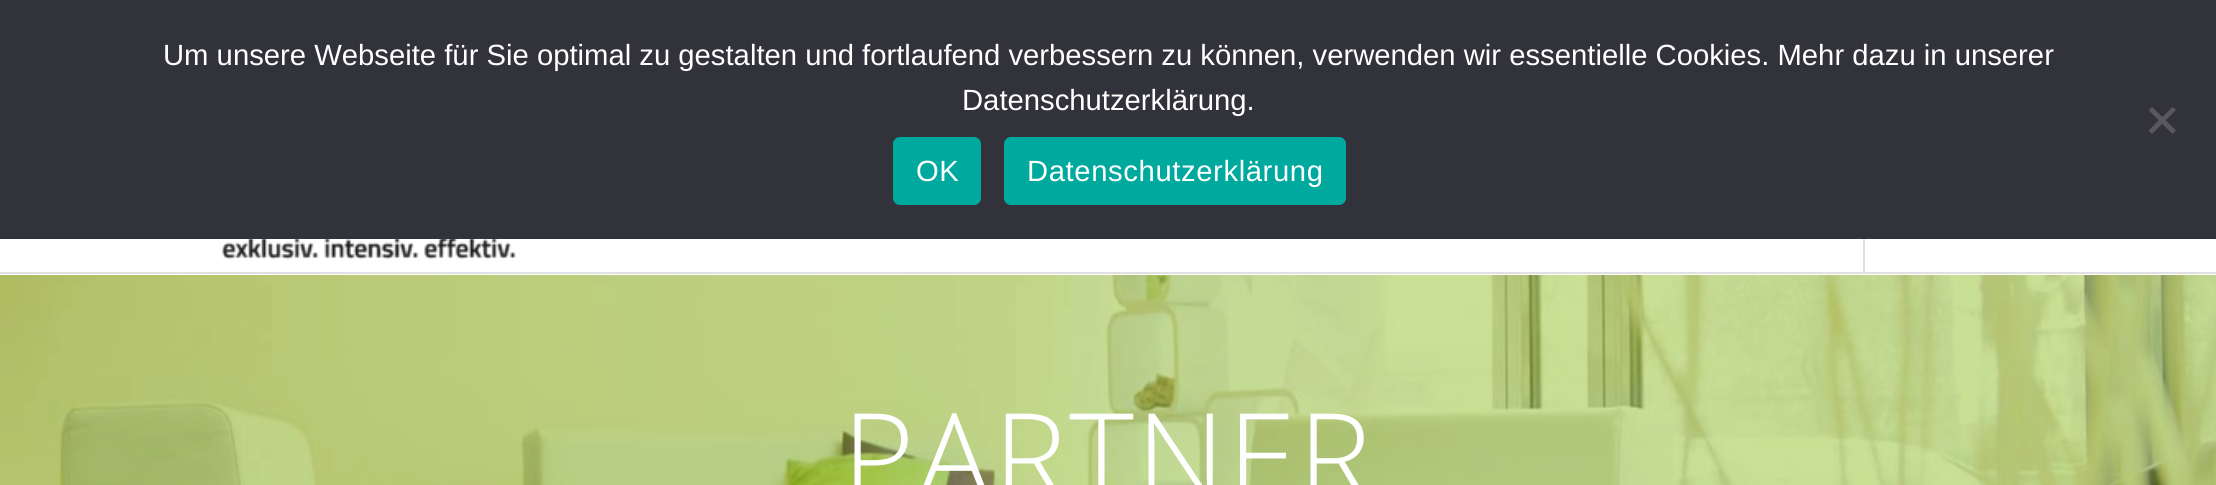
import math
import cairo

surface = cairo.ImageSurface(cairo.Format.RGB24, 2216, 485)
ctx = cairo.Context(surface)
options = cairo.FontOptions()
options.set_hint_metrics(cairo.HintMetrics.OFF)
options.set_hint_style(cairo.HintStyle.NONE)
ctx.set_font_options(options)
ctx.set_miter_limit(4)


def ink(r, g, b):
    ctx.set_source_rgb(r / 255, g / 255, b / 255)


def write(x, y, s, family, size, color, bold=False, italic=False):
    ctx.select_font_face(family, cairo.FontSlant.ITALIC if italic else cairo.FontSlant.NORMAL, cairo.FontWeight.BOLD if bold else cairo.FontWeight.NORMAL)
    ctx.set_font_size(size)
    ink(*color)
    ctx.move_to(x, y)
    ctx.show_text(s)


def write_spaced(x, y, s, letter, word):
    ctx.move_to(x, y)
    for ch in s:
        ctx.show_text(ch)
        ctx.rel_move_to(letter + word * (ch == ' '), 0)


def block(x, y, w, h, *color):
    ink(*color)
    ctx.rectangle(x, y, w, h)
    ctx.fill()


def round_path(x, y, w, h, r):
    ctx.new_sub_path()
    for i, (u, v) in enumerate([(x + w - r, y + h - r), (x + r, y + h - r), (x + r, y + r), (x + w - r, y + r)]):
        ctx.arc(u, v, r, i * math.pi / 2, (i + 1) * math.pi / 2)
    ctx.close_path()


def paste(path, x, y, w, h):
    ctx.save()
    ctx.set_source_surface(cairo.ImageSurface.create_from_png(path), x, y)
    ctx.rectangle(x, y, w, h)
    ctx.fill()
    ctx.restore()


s1 = dict(family="Liberation Sans", size=29.25, color=(255, 255, 255))

ink(255, 255, 255)
ctx.paint()
block(0, 0, 2216, 239, 50, 50, 58)
write(163, 65, "Um unsere Webseite für Sie optimal zu gestalten und fortlaufend verbessern zu können, verwenden wir essentielle Cookies. Mehr dazu in unserer", **s1)
write(962, 110, "Datenschutzerklärung.", **s1)
ink(89, 89, 93)
ctx.new_path()
ctx.move_to(2172.5, 107)
ctx.line_to(2176, 110)
ctx.line_to(2152, 134)
ctx.line_to(2148.5, 130.5)
ctx.close_path()
ctx.fill()
ctx.new_path()
ctx.move_to(2148.5, 110)
ctx.line_to(2152, 107)
ctx.line_to(2176, 130.5)
ctx.line_to(2172.5, 134)
ctx.close_path()
ctx.fill()
ink(0, 169, 157)
round_path(893, 137, 88, 68, 7)
ctx.fill()
ink(255, 255, 255)
write_spaced(916, 181, "OK", 0.6, 0)
ink(0, 169, 157)
round_path(1004, 137, 342, 68, 7)
ctx.fill()
ink(255, 255, 255)
write_spaced(1027, 181, "Datenschutzerklärung", 0.6, 0)
block(0, 272, 2216, 2, 225, 225, 225)
paste("pic1.png", 222, 239, 294, 21)
block(1863, 239, 2, 33, 225, 225, 225)
paste("pic2.png", 0, 275, 2216, 210)
ctx.select_font_face("Open Sans Light")
ctx.set_font_size(123.75)
ink(255, 255, 255)
write_spaced(842, 502, "PARTNER", 2.25, 0)
surface.write_to_png("screenshot.png")
